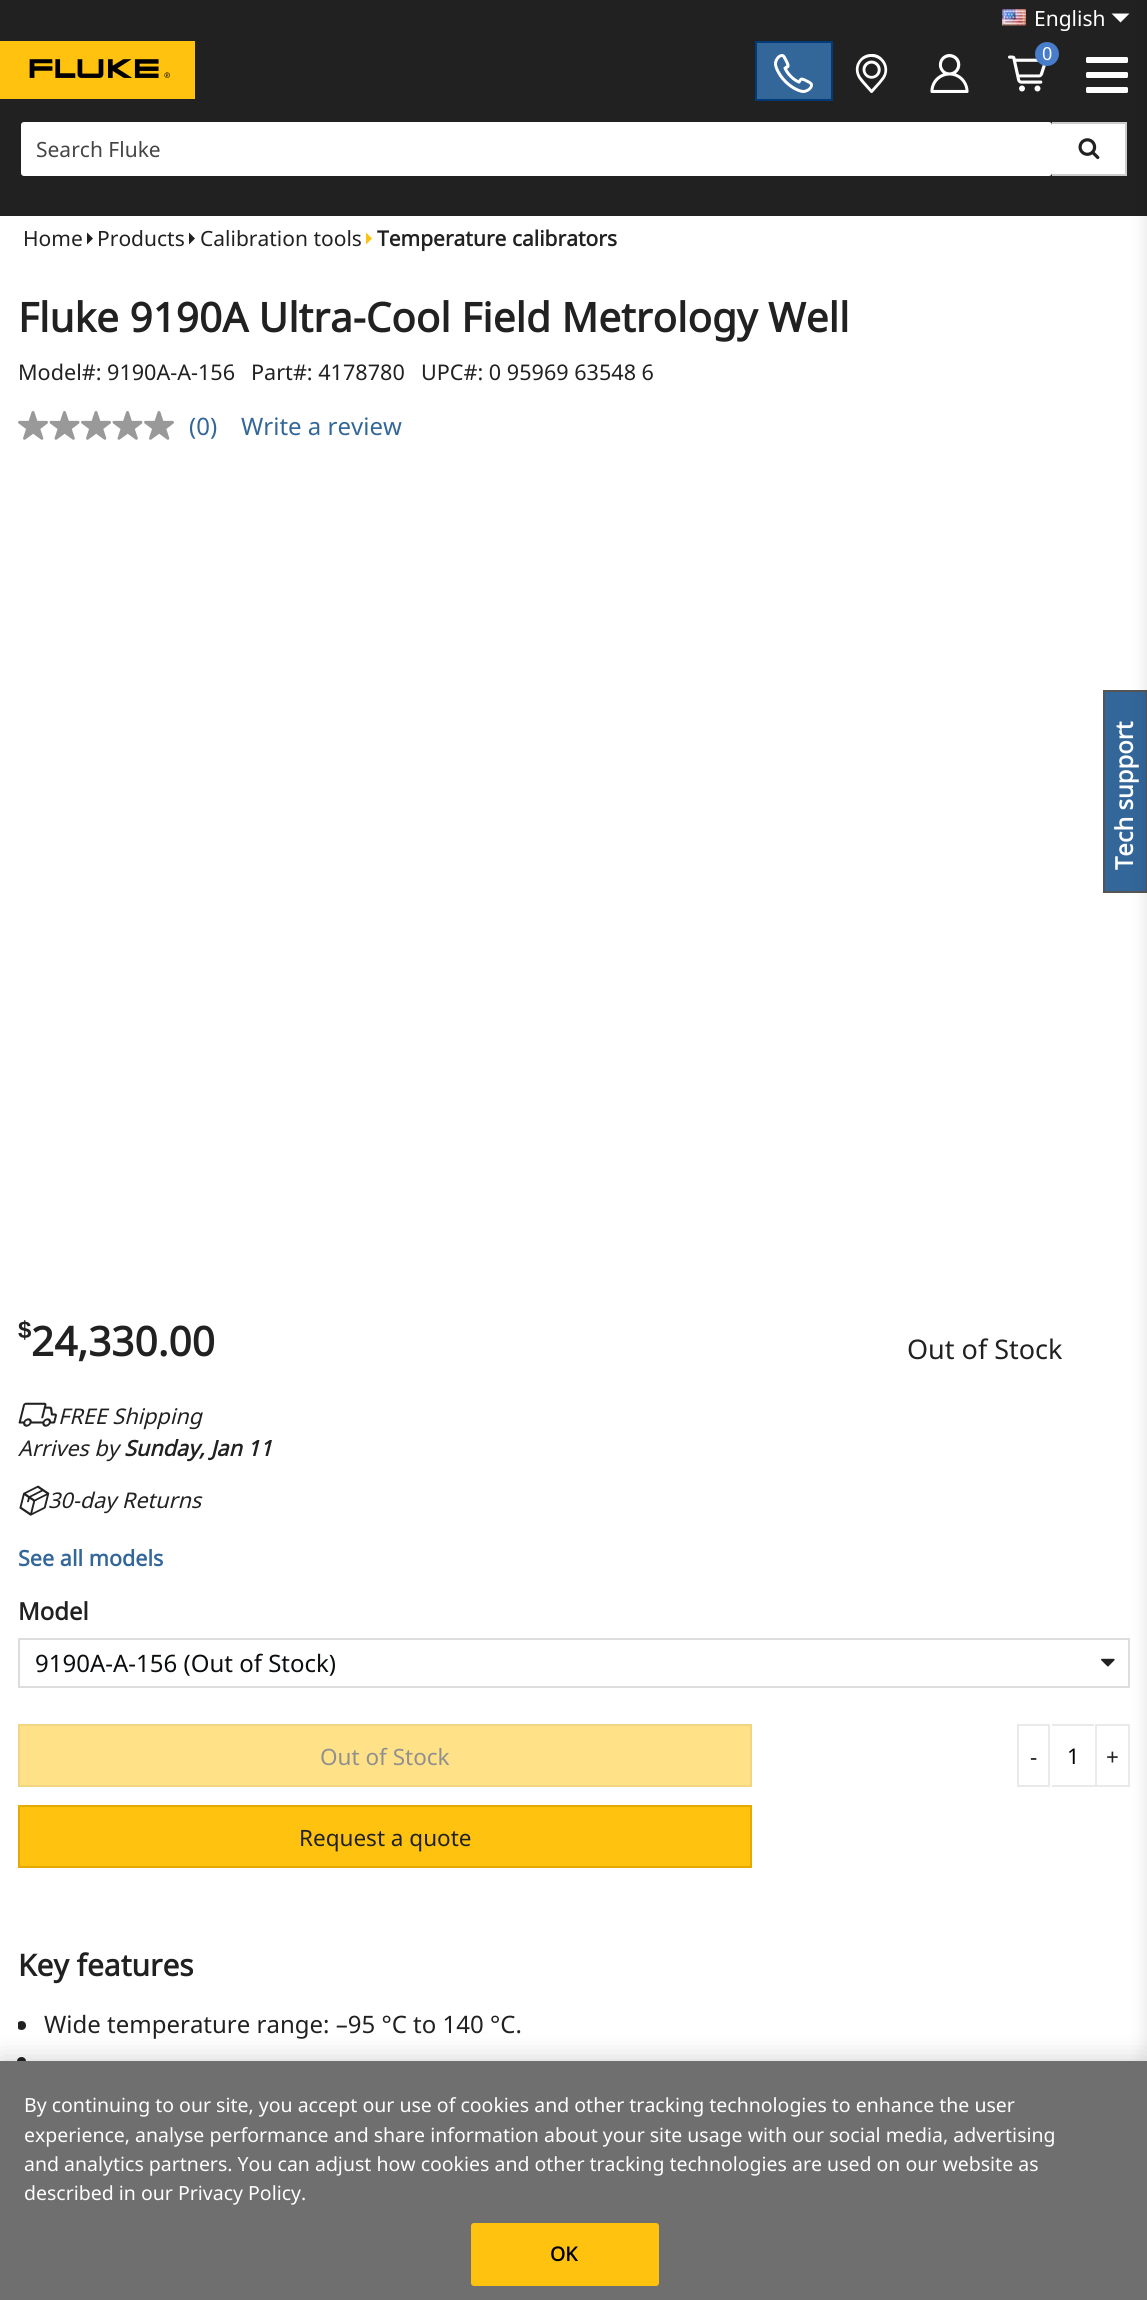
import math
import cairo

surface = cairo.ImageSurface(cairo.Format.RGB24, 1147, 2300)
ctx = cairo.Context(surface)
options = cairo.FontOptions()
options.set_hint_metrics(cairo.HintMetrics.OFF)
options.set_hint_style(cairo.HintStyle.NONE)
ctx.set_font_options(options)
ctx.set_miter_limit(4)


def ink(r, g, b):
    ctx.set_source_rgb(r / 255, g / 255, b / 255)


def write(x, y, s, family, size, color, bold=False, italic=False):
    ctx.select_font_face(family, cairo.FontSlant.ITALIC if italic else cairo.FontSlant.NORMAL, cairo.FontWeight.BOLD if bold else cairo.FontWeight.NORMAL)
    ctx.set_font_size(size)
    ink(*color)
    ctx.move_to(x, y)
    ctx.show_text(s)


def block(x, y, w, h, *color):
    ink(*color)
    ctx.rectangle(x, y, w, h)
    ctx.fill()


def round_path(x, y, w, h, r):
    ctx.new_sub_path()
    for i, (u, v) in enumerate([(x + w - r, y + h - r), (x + r, y + h - r), (x + r, y + r), (x + w - r, y + r)]):
        ctx.arc(u, v, r, i * math.pi / 2, (i + 1) * math.pi / 2)
    ctx.close_path()


def blur_box(x, y, w, h, r, blur, alpha):
    ctx.push_group_with_content(cairo.Content.ALPHA)
    ctx.set_operator(cairo.Operator.SOURCE)
    for i in range(15, -16, -2):
        e = blur * i / 6
        if min(w, h) + 2 * e > 0:
            ctx.set_source_rgba(0, 0, 0, alpha * math.erfc((i - 1) / 8.5) / 2)
            round_path(x - e, y - e, w + 2 * e, h + 2 * e, max(0, min(r + e + blur * .6, min(w, h) / 2 + e)))
            ctx.fill()
    ctx.mask(ctx.pop_group())


def paste(path, x, y, w, h):
    ctx.save()
    ctx.set_source_surface(cairo.ImageSurface.create_from_png(path), x, y)
    ctx.rectangle(x, y, w, h)
    ctx.fill()
    ctx.restore()


s1 = dict(family="Noto Sans", size=21, color=(255, 255, 255))
s2 = dict(family="Noto Sans", size=18, color=(255, 255, 255))
s3 = dict(family="Noto Sans", size=21, color=(69, 69, 69))
s4 = dict(family="Noto Sans", size=21, color=(33, 33, 33))
s5 = dict(family="Noto Sans", size=21, color=(33, 33, 33), bold=True)
s6 = dict(family="Noto Sans", size=40.5, color=(33, 33, 33), bold=True)
s7 = dict(family="Noto Sans", size=21.6, color=(33, 33, 33))
s8 = dict(family="Noto Sans", size=24, color=(51, 102, 153))
s9 = dict(family="Liberation Sans", size=24, color=(33, 33, 33), bold=True)
s10 = dict(family="Noto Sans", size=27, color=(33, 33, 33))
s11 = dict(family="Noto Sans", size=21.6, color=(33, 33, 33), italic=True)
s12 = dict(family="Noto Sans", size=21.6, color=(33, 33, 33), bold=True, italic=True)
s13 = dict(family="Noto Sans", size=21.6, color=(51, 102, 153), bold=True)
s14 = dict(family="Noto Sans", size=24, color=(33, 33, 33), bold=True)
s15 = dict(family="Noto Sans", size=24, color=(11, 13, 15))
s16 = dict(family="Noto Sans", size=22.5, color=(144, 144, 144))
s17 = dict(family="Noto Sans", size=22.5, color=(33, 33, 33))
s18 = dict(family="Noto Sans", size=21.6, color=(0, 0, 0))
s19 = dict(family="Noto Sans", size=30, color=(33, 33, 33), bold=True)
s20 = dict(family="Noto Sans", size=24, color=(33, 33, 33))
s21 = dict(family="Noto Sans", size=24, color=(255, 255, 255), bold=True)
s22 = dict(family="Noto Sans", size=19.5, color=(255, 255, 255))
s23 = dict(family="Noto Sans", size=19.5, color=(0, 0, 0), bold=True)

ink(255, 255, 255)
ctx.paint()
block(0, 0, 1147, 216, 33, 33, 33)
paste("pic1.png", 1002, 9, 24, 17)
write(1034, 26, "English", **s1)
ctx.new_path()
ctx.move_to(1111.5, 13.5)
ctx.line_to(1129.5, 13.5)
ctx.line_to(1120.5, 22.5)
ctx.close_path()
ctx.fill()
paste("pic2.png", 0, 41, 195, 58)
ink(51, 102, 153)
ctx.rectangle(756, 42, 76, 58)
ctx.fill_preserve()
ink(0, 59, 120)
ctx.stroke()
paste("pic3.png", 774, 54, 39, 39)
paste("pic4.png", 855, 54, 33, 39)
paste("pic5.png", 930, 54, 39, 39)
paste("pic6.png", 1008, 55, 38, 37)
ink(71, 125, 202)
ctx.arc(1047, 54, 12, 0, 2 * math.pi)
ctx.fill()
write(1042, 60, "0", **s2)
round_path(1086, 57, 42, 6, 1.5)
ctx.fill()
round_path(1086, 72, 42, 6, 1.5)
ctx.fill()
round_path(1086, 87, 42, 6, 1.5)
ctx.fill()
block(1052, 124, 73, 50, 255, 255, 255)
block(1052, 122, 75, 2, 204, 204, 204)
block(1125, 122, 2, 54, 204, 204, 204)
block(1052, 174, 75, 2, 204, 204, 204)
ctx.rectangle(19, 1639, 1110, 48)
ink(221, 221, 221)
ctx.stroke()
ctx.rectangle(1096, 1725, 33, 61)
ink(234, 234, 234)
ctx.stroke()
ink(51, 102, 153)
ctx.rectangle(1104, 691, 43, 201)
ctx.fill_preserve()
ink(85, 85, 85)
ctx.stroke()
ink(0, 0, 0)
blur_box(1145, 0, 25, 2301, 0, 7.5, 0.1)
ink(255, 255, 255)
round_path(21, 122, 1031, 54, 3)
ctx.fill()
write(36, 157, "Search Fluke", **s3)
paste("pic7.png", 1078, 138, 22, 22)
write(23, 246, "Home", **s4)
ctx.new_path()
ctx.move_to(87, 244.5)
ctx.line_to(87, 232.5)
ctx.line_to(93, 238.5)
ctx.close_path()
ctx.fill()
write(97, 246, "Products", **s4)
ctx.new_path()
ctx.move_to(189, 244.5)
ctx.line_to(189, 232.5)
ctx.line_to(195, 238.5)
ctx.close_path()
ctx.fill()
write(200, 246, "Calibration tools", **s4)
ink(255, 194, 14)
ctx.new_path()
ctx.move_to(366, 244.5)
ctx.line_to(366, 232.5)
ctx.line_to(372, 238.5)
ctx.close_path()
ctx.fill()
write(377, 246, "Temperature calibrators", **s5)
write(18, 332, "Fluke 9190A Ultra-Cool Field Metrology Well", **s6)
write(18, 380, "Model#: 9190A-A-156", **s7)
write(251, 380, "Part#: 4178780", **s7)
write(421, 380, "UPC#: 0 95969 63548 6", **s7)
paste("pic8.png", 18, 411, 30, 29)
paste("pic9.png", 49, 411, 31, 29)
paste("pic8.png", 81, 411, 30, 29)
paste("pic9.png", 112, 411, 31, 29)
paste("pic8.png", 144, 411, 30, 29)
write(189, 435, "(0)", **s8)
write(241, 435, "Write a review", **s8)
write(18, 1338, "$", **s9)
write(31, 1356, "24,330.00", **s6)
write(907, 1359, "Out of Stock", **s10)
paste("pic10.png", 18, 1402, 39, 25)
write(58, 1424, "FREE Shipping", **s11)
write(18, 1456, "Arrives by", **s11)
write(124, 1456, "Sunday, Jan 11", **s12)
write(48, 1508, "30-day Returns", **s11)
paste("pic11.png", 19, 1485, 31, 31)
write(18, 1566, "See all models", **s13)
write(18, 1620, "Model", **s14)
write(35, 1672, "9190A-A-156 (Out of Stock)", **s15)
paste("pic12.png", 1101, 1658, 14, 9)
ink(255, 225, 135)
ctx.rectangle(19, 1725, 732, 61)
ctx.fill_preserve()
ink(242, 213, 128)
ctx.stroke()
write(320, 1765, "Out of Stock", **s16)
ctx.rectangle(1018, 1725, 31, 61)
ink(234, 234, 234)
ctx.stroke()
write(1030, 1765, "-", **s17)
block(1050, 1724, 45, 2, 234, 234, 234)
block(1094, 1724, 1, 2, 255, 255, 255)
block(1050, 1785, 45, 2, 234, 234, 234)
block(1050, 1724, 2, 63, 255, 255, 255)
write(1067, 1764, "1", **s18)
write(1106, 1765, "+", **s17)
ink(255, 194, 14)
ctx.rectangle(19, 1806, 732, 61)
ctx.fill_preserve()
ink(228, 170, 0)
ctx.stroke()
write(299, 1846, "Request a quote", **s17)
write(18, 1976, "Key features", **s19)
ctx.save()
ctx.rectangle(18, 2006, 1112, 202)
ctx.clip()
ctx.arc(21.5, 2025.5, 4.5, 0, 2 * math.pi)
ctx.fill()
ctx.restore()
write(44, 2033, "Wide temperature range: –95 °C to 140 °C.", **s20)
ctx.new_path()
ctx.arc(21.5, 2061.5, 4.5, 0, 2 * math.pi)
ctx.fill()
ctx.save()
ctx.translate(1133, 870)
ctx.rotate(-90 * math.pi / 180)
write(0, 0, "Tech support", **s21)
ctx.restore()
ink(0, 0, 0)
blur_box(0, 2061, 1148, 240, 0, 13.5, 0.2)
block(0, 2061, 1147, 239, 111, 111, 111)
write(24, 2112, "By continuing to our site, you accept our use of cookies and other tracking technologies to enhance the user", **s22)
write(24, 2142, "experience, analyse performance and share information about your site usage with our social media, advertising", **s22)
write(24, 2171, "and analytics partners. You can adjust how cookies and other tracking technologies are used on our website as", **s22)
write(24, 2200, "described in our Privacy Policy.", **s22)
ink(255, 194, 14)
round_path(472, 2224, 186, 61, 2)
ctx.fill_preserve()
ctx.stroke()
write(550, 2261, "OK", **s23)
surface.write_to_png("screenshot.png")
